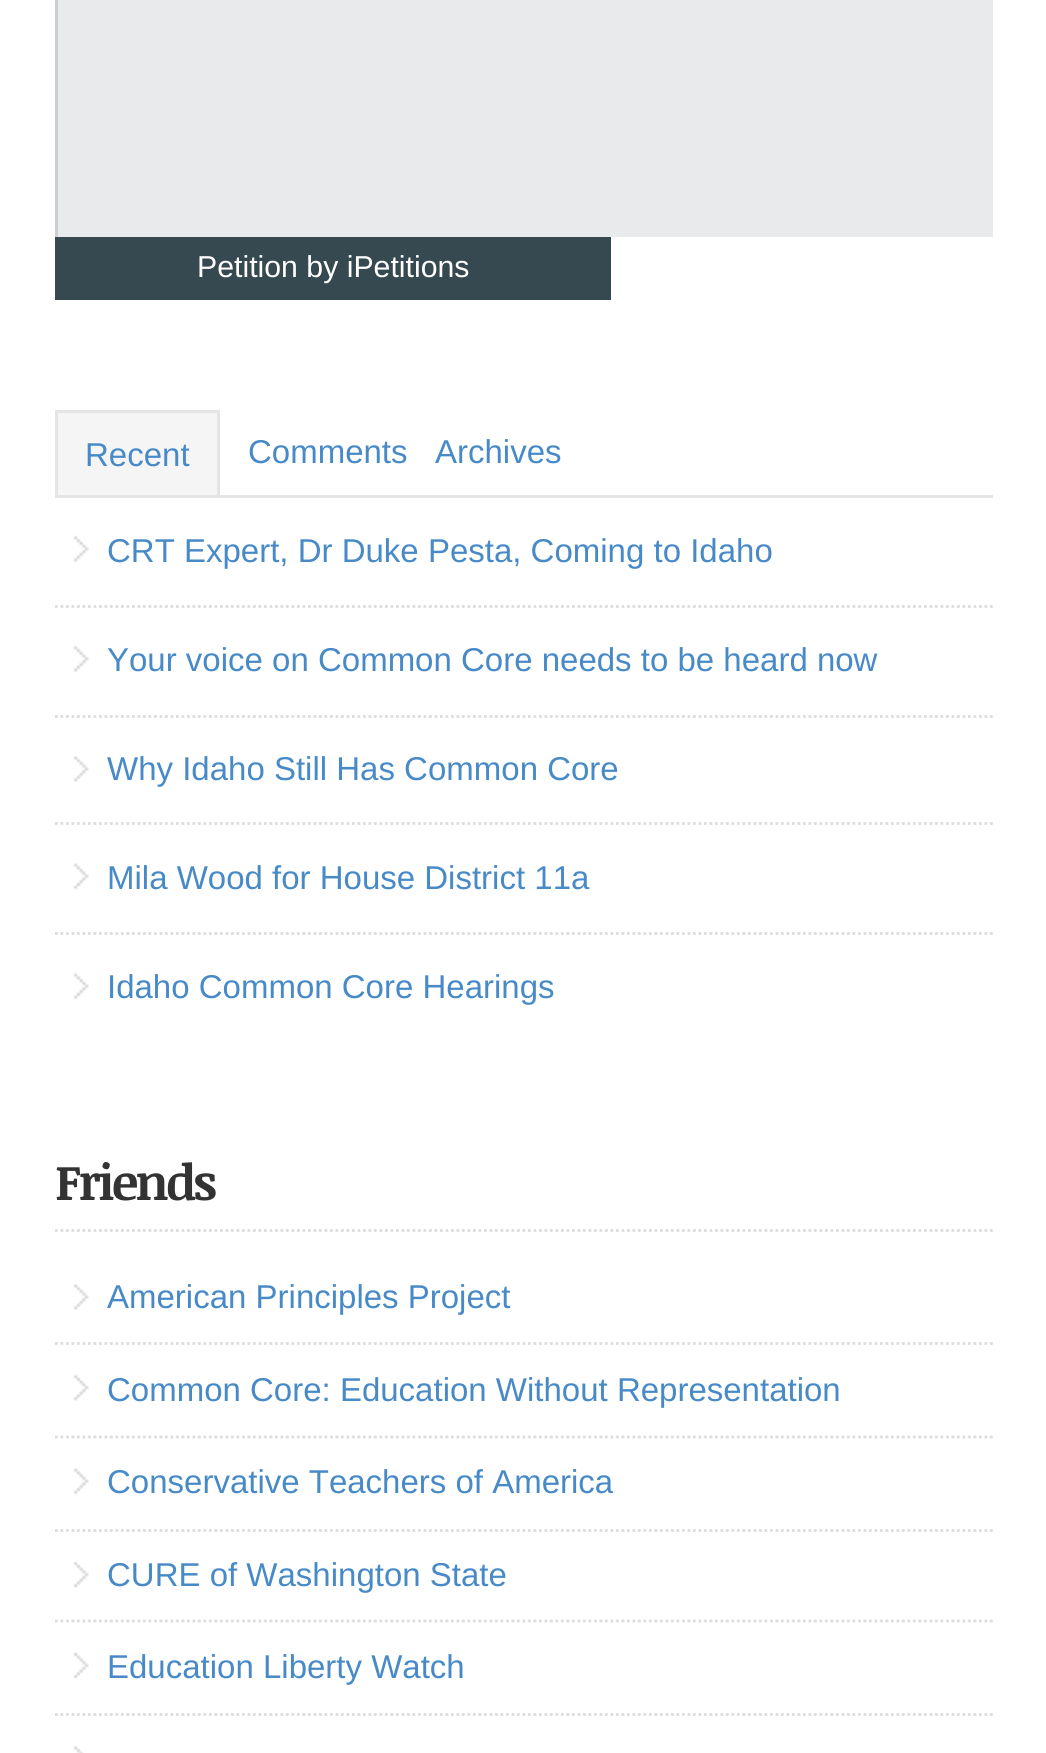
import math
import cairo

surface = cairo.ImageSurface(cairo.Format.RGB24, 1046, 1753)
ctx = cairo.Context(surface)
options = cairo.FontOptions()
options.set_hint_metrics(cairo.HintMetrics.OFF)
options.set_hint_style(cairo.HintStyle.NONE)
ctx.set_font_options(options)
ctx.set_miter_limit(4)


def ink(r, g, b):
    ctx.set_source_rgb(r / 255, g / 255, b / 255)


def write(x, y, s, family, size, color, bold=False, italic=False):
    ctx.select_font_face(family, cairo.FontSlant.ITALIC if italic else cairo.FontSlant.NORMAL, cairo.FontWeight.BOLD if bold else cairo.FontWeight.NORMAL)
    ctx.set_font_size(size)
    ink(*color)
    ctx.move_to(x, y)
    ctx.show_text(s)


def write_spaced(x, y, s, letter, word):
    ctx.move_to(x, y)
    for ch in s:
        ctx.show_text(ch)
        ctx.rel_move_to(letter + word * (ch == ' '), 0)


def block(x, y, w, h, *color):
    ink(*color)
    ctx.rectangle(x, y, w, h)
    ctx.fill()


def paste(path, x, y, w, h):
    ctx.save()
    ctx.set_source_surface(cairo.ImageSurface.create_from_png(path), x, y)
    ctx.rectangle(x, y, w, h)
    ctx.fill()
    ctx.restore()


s1 = dict(family="Liberation Sans", size=30.25, color=(255, 255, 255))
s2 = dict(family="Liberation Sans", size=33, color=(72, 138, 199))

ink(255, 255, 255)
ctx.paint()
block(55, 0, 3, 237, 205, 206, 208)
block(58, 0, 935, 237, 233, 234, 235)
block(55, 237, 556, 63, 54, 73, 80)
write(197, 277, "Petition by iPetitions", **s1)
block(55, 495, 938, 3, 229, 229, 229)
block(58, 413, 159, 82, 245, 245, 245)
block(55, 410, 165, 3, 229, 229, 229)
block(217, 410, 3, 85, 229, 229, 229)
block(55, 410, 3, 85, 229, 229, 229)
write(85, 466, "Recent", **s2)
write(248, 463, "Comments", **s2)
write(435, 463, "Archives", **s2)
paste("pic1.png", 73, 535, 16, 27)
ctx.new_path()
ctx.move_to(55, 606.5)
ctx.line_to(993, 606.5)
ink(221, 221, 221)
ctx.set_line_width(2.8)
ctx.set_dash([2.75, 2.75])
ctx.stroke()
write(107, 562, "CRT Expert, Dr Duke Pesta, Coming to Idaho", **s2)
paste("pic1.png", 73, 645, 16, 27)
ctx.new_path()
ctx.move_to(55, 716.5)
ctx.line_to(993, 716.5)
ink(221, 221, 221)
ctx.stroke()
write(107, 671, "Your voice on Common Core needs to be heard now", **s2)
paste("pic1.png", 73, 755, 16, 27)
ctx.new_path()
ctx.move_to(55, 823.5)
ctx.line_to(993, 823.5)
ink(221, 221, 221)
ctx.stroke()
write(107, 780, "Why Idaho Still Has Common Core", **s2)
paste("pic2.png", 73, 863, 16, 27)
ctx.new_path()
ctx.move_to(55, 933.5)
ctx.line_to(993, 933.5)
ink(221, 221, 221)
ctx.stroke()
write(107, 889, "Mila Wood for House District 11a", **s2)
paste("pic2.png", 73, 973, 16, 27)
write(107, 998, "Idaho Common Core Hearings", **s2)
ctx.new_path()
ctx.move_to(55, 1230.5)
ctx.line_to(993, 1230.5)
ink(221, 221, 221)
ctx.stroke()
ctx.select_font_face("Noticia Text", cairo.FontSlant.NORMAL, cairo.FontWeight.BOLD)
ctx.set_font_size(49.5)
ink(51, 51, 51)
write_spaced(55, 1200, "Friends", -2.75, 0)
paste("pic1.png", 73, 1283, 16, 27)
ctx.new_path()
ctx.move_to(55, 1343.5)
ctx.line_to(993, 1343.5)
ink(221, 221, 221)
ctx.stroke()
write(107, 1308, "American Principles Project", **s2)
paste("pic3.png", 73, 1374, 16, 27)
ctx.new_path()
ctx.move_to(55, 1437)
ctx.line_to(993, 1437)
ink(221, 221, 221)
ctx.stroke()
write(107, 1401, "Common Core: Education Without Representation", **s2)
paste("pic2.png", 73, 1468, 16, 27)
ctx.new_path()
ctx.move_to(55, 1530.5)
ctx.line_to(993, 1530.5)
ink(221, 221, 221)
ctx.stroke()
write(107, 1493, "Conservative Teachers of America", **s2)
paste("pic3.png", 73, 1561, 16, 27)
ctx.new_path()
ctx.move_to(55, 1621)
ctx.line_to(993, 1621)
ink(221, 221, 221)
ctx.stroke()
write(107, 1586, "CURE of Washington State", **s2)
paste("pic4.png", 73, 1652, 16, 27)
ctx.new_path()
ctx.move_to(55, 1714.5)
ctx.line_to(993, 1714.5)
ink(221, 221, 221)
ctx.stroke()
write(107, 1678, "Education Liberty Watch", **s2)
paste("pic5.png", 73, 1745, 11, 8)
surface.write_to_png("screenshot.png")
